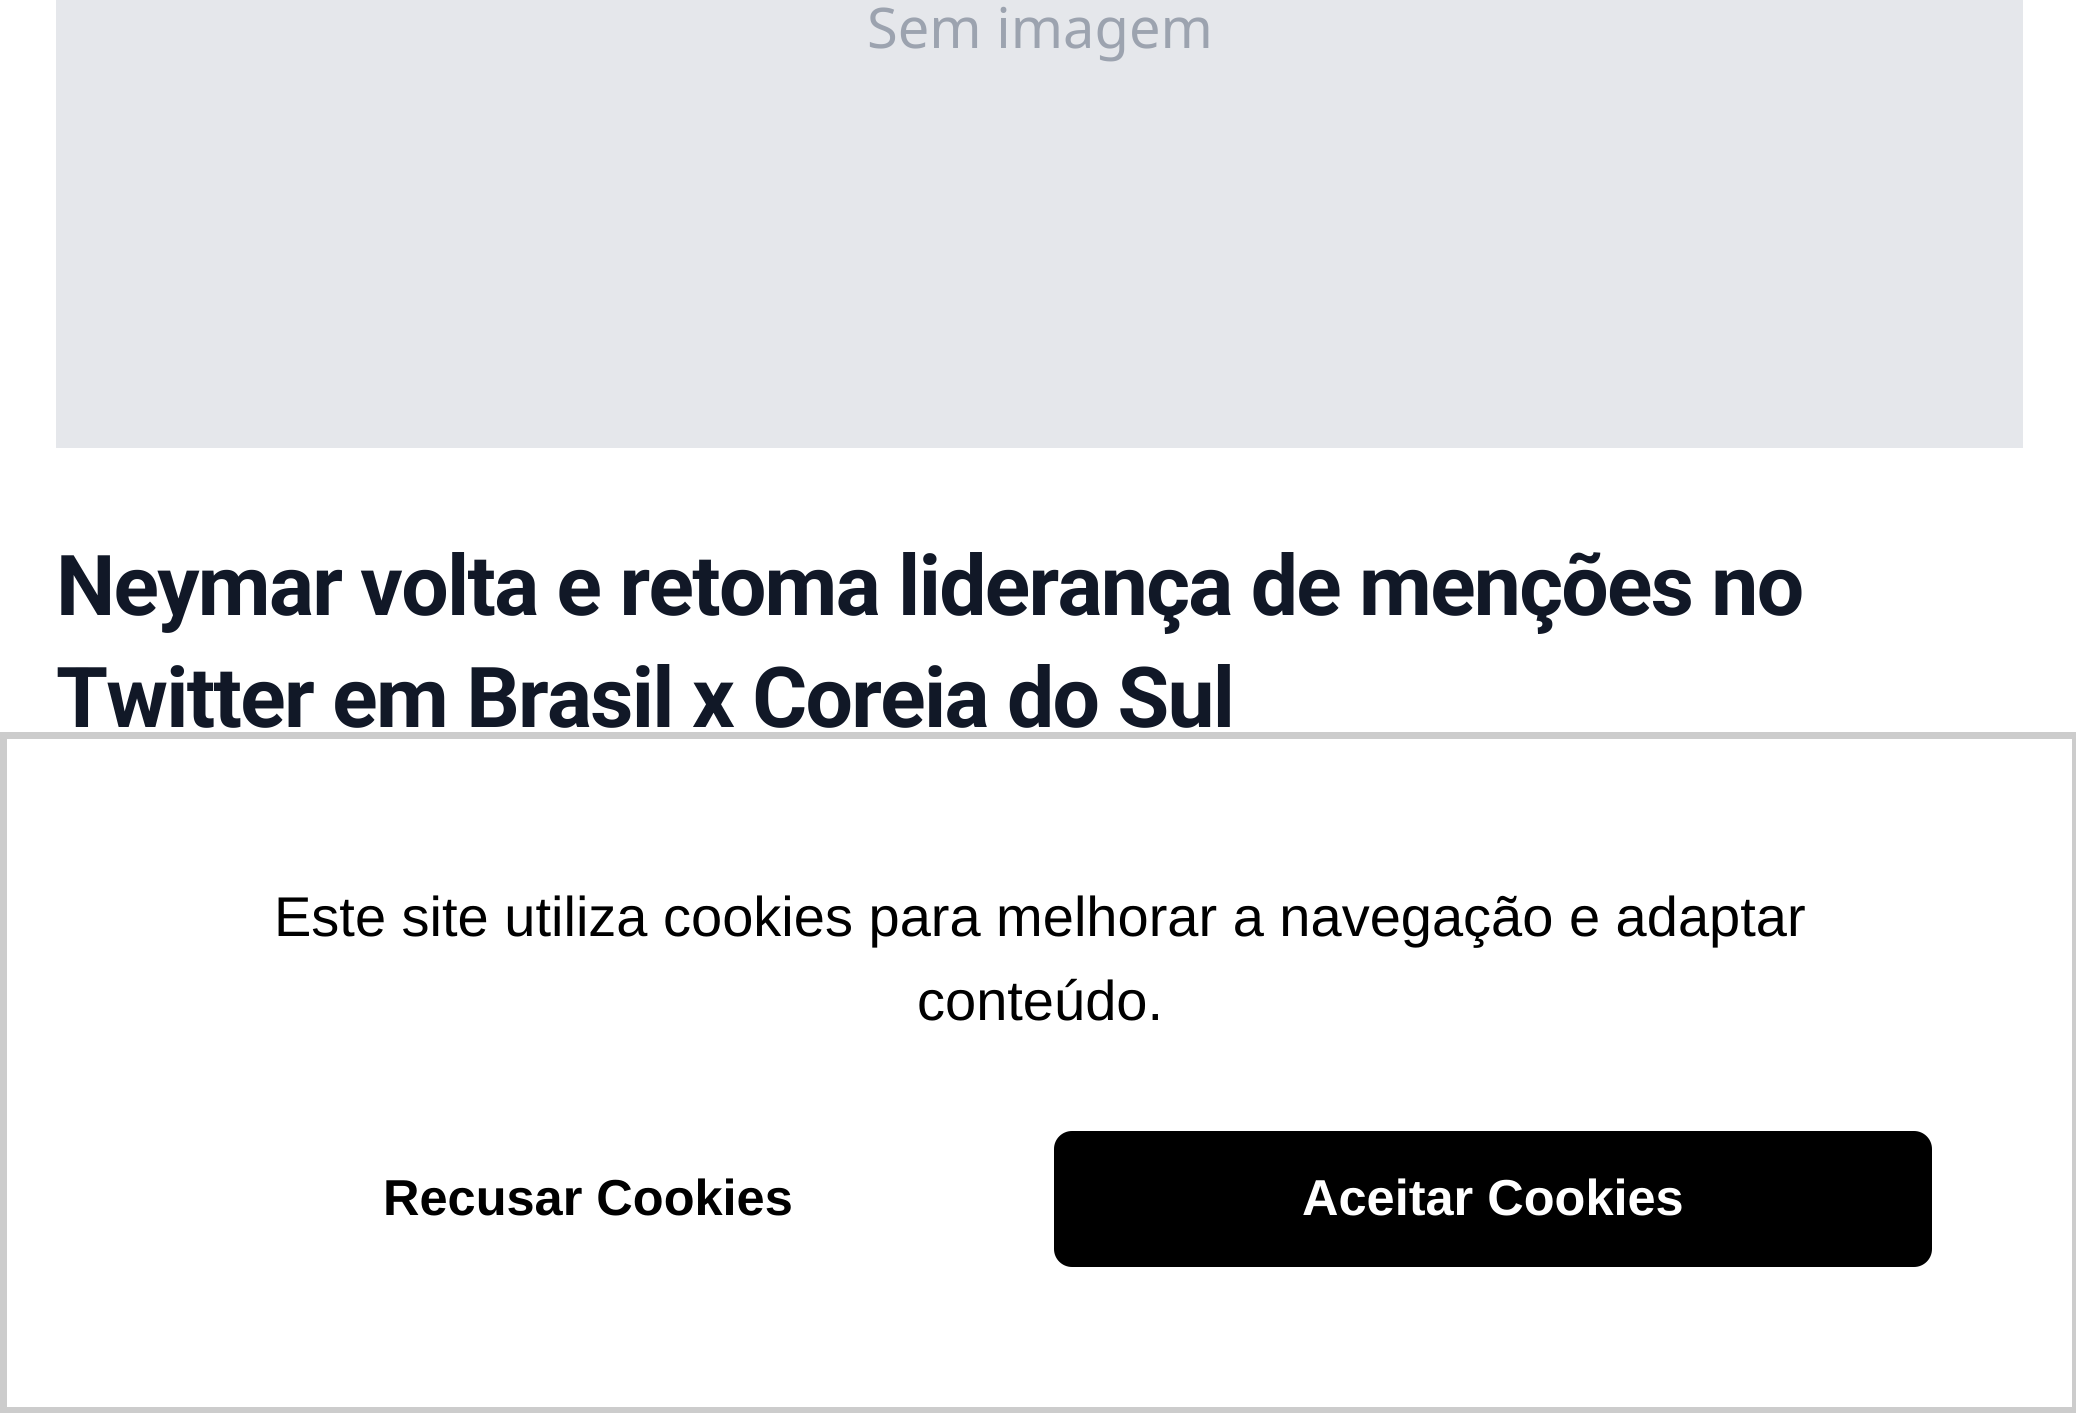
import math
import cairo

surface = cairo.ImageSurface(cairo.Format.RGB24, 2076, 1413)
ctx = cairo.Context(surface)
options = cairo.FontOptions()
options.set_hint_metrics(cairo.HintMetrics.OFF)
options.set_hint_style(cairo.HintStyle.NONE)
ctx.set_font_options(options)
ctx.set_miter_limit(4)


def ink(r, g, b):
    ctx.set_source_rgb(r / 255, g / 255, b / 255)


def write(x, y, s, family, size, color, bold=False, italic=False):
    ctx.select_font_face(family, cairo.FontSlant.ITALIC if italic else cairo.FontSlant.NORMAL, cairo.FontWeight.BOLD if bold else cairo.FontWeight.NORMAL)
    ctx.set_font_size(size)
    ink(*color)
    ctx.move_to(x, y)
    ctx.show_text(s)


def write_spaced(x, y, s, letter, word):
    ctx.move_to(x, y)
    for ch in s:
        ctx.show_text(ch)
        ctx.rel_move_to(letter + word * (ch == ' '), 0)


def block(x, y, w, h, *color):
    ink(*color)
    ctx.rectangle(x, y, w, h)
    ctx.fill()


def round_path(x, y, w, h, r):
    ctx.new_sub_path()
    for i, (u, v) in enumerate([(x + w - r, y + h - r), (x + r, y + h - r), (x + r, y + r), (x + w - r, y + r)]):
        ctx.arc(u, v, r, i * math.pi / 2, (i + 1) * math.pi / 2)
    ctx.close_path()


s1 = dict(family="Noto Sans", size=56, color=(156, 163, 175))
s2 = dict(family="Liberation Sans", size=56, color=(0, 0, 0))
s3 = dict(family="Liberation Sans", size=50.5, color=(0, 0, 0), bold=True)
s4 = dict(family="Liberation Sans", size=50.5, color=(255, 255, 255), bold=True)

ink(255, 255, 255)
ctx.paint()
block(56, 0, 1967, 448, 229, 231, 235)
write(867, 48, "Sem imagem", **s1)
ctx.select_font_face("Roboto", cairo.FontSlant.NORMAL, cairo.FontWeight.BOLD)
ctx.set_font_size(84)
ink(17, 24, 39)
write_spaced(56, 615, "Neymar volta e retoma liderança de menções no", -1.7, 0)
write_spaced(56, 727, "Twitter em Brasil x Coreia do Sul", -1.7, 0)
ctx.rectangle(3.5, 735.5, 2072, 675)
ink(204, 204, 204)
ctx.set_line_width(7)
ctx.stroke()
write(274, 936, "Este site utiliza cookies para melhorar a navegação e adaptar", **s2)
write(917, 1020, "conteúdo.", **s2)
write(383, 1215, "Recusar Cookies", **s3)
round_path(1054, 1131, 878, 136, 18)
ctx.fill()
write(1302, 1215, "Aceitar Cookies", **s4)
surface.write_to_png("screenshot.png")
